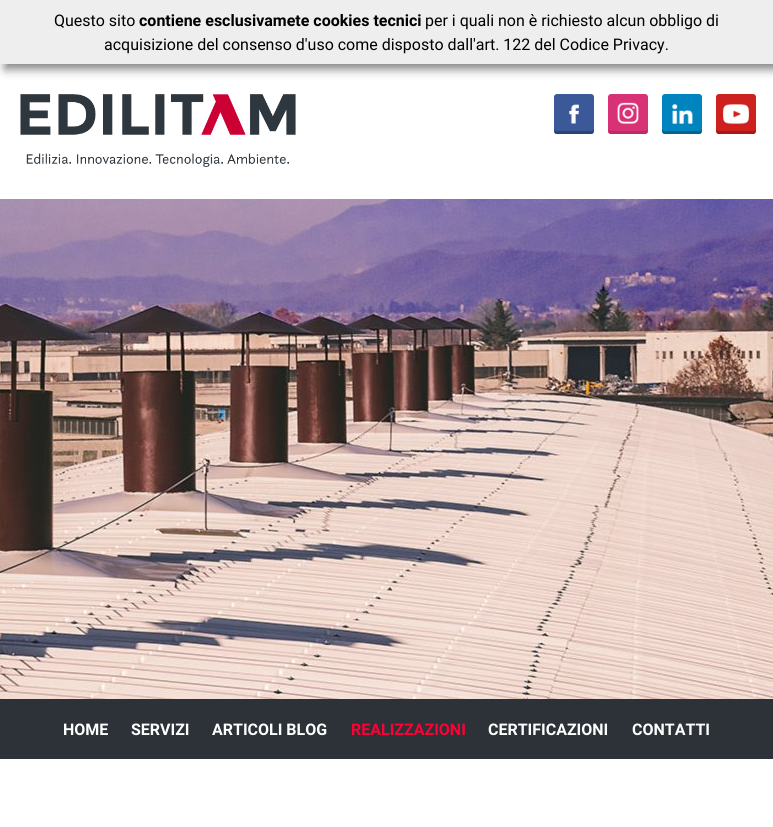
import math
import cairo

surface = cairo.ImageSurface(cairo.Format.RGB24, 773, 827)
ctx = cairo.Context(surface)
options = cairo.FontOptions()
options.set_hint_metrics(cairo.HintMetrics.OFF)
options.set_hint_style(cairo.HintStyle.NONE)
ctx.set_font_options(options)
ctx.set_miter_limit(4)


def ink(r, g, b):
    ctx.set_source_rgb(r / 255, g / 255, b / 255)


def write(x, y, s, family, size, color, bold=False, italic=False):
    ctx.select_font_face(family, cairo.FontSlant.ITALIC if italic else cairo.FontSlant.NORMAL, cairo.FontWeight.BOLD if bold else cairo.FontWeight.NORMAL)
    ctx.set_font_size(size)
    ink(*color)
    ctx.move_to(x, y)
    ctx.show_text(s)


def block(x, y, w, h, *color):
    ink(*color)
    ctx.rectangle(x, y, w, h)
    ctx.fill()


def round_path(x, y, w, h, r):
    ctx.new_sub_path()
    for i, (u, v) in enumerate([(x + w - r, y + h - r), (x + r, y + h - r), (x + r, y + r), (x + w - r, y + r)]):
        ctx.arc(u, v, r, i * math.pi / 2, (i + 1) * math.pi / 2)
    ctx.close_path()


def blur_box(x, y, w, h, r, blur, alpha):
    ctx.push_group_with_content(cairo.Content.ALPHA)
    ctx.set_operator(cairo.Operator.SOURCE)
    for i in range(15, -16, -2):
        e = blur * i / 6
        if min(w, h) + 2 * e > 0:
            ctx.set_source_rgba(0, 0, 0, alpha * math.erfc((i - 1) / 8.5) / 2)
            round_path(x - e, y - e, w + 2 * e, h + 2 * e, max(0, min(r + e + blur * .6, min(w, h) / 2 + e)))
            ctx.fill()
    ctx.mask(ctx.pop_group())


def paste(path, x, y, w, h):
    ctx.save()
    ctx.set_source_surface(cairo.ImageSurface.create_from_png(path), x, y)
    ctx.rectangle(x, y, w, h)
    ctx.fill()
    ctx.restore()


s1 = dict(family="Roboto", size=16, color=(0, 0, 0))
s2 = dict(family="Roboto", size=16, color=(0, 0, 0), bold=True)
s3 = dict(family="Roboto", size=16, color=(255, 255, 255), bold=True)
s4 = dict(family="Roboto", size=16, color=(255, 0, 51), bold=True)

ink(255, 255, 255)
ctx.paint()
ink(0, 0, 0)
blur_box(5, 5, 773, 64, 0, 5, 0.5)
block(0, 0, 773, 64, 238, 238, 238)
write(54, 26, "Questo sito", **s1)
write(139, 26, "contiene esclusivamete cookies tecnici", **s2)
write(425, 26, "per i quali non è richiesto alcun obbligo di", **s1)
write(104, 50, "acquisizione del consenso d'uso come disposto dall'art. 122 del Codice Privacy.", **s1)
paste("pic1.png", 20, 94, 276, 73)
ink(59, 89, 152)
round_path(554, 94, 40, 40, 3)
ctx.fill()
paste("pic2.png", 569, 104, 10, 20)
ink(45, 67, 115)
ctx.new_path()
ctx.move_to(554, 128)
ctx.curve_to(554, 135, 555, 134, 563, 134)
ctx.line_to(585, 134)
ctx.curve_to(593, 134, 594, 135, 594, 128)
ctx.curve_to(594, 130, 593, 131, 591, 131)
ctx.line_to(557, 131)
ctx.curve_to(555, 131, 554, 130, 554, 128)
ctx.close_path()
ctx.fill()
ink(217, 49, 117)
round_path(608, 94, 40, 40, 3)
ctx.fill()
paste("pic3.png", 617, 102, 22, 22)
ink(188, 43, 101)
ctx.new_path()
ctx.move_to(608, 128)
ctx.curve_to(608, 135, 609, 134, 617, 134)
ctx.line_to(639, 134)
ctx.curve_to(647, 134, 648, 135, 648, 128)
ctx.curve_to(648, 130, 647, 131, 645, 131)
ctx.line_to(611, 131)
ctx.curve_to(609, 131, 608, 130, 608, 128)
ctx.close_path()
ctx.fill()
ink(0, 132, 191)
round_path(662, 94, 40, 40, 3)
ctx.fill()
paste("pic4.png", 672, 104, 21, 20)
ink(0, 102, 142)
ctx.new_path()
ctx.move_to(662, 128)
ctx.curve_to(662, 135, 663, 134, 671, 134)
ctx.line_to(693, 134)
ctx.curve_to(701, 134, 702, 135, 702, 128)
ctx.curve_to(702, 130, 701, 131, 699, 131)
ctx.line_to(665, 131)
ctx.curve_to(663, 131, 662, 130, 662, 128)
ctx.close_path()
ctx.fill()
ink(205, 32, 31)
round_path(716, 94, 40, 40, 3)
ctx.fill()
paste("pic5.png", 723, 104, 26, 20)
ink(166, 25, 25)
ctx.new_path()
ctx.move_to(716, 128)
ctx.curve_to(716, 135, 717, 134, 725, 134)
ctx.line_to(747, 134)
ctx.curve_to(755, 134, 756, 135, 756, 128)
ctx.curve_to(756, 130, 755, 131, 753, 131)
ctx.line_to(719, 131)
ctx.curve_to(717, 131, 716, 130, 716, 128)
ctx.close_path()
ctx.fill()
paste("pic6.png", 0, 199, 773, 500)
block(0, 699, 773, 60, 44, 50, 55)
write(63, 735, "HOME", **s3)
write(131, 735, "SERVIZI", **s3)
write(212, 735, "ARTICOLI BLOG", **s3)
write(351, 735, "REALIZZAZIONI", **s4)
write(488, 735, "CERTIFICAZIONI", **s3)
write(632, 735, "CONTATTI", **s3)
surface.write_to_png("screenshot.png")
